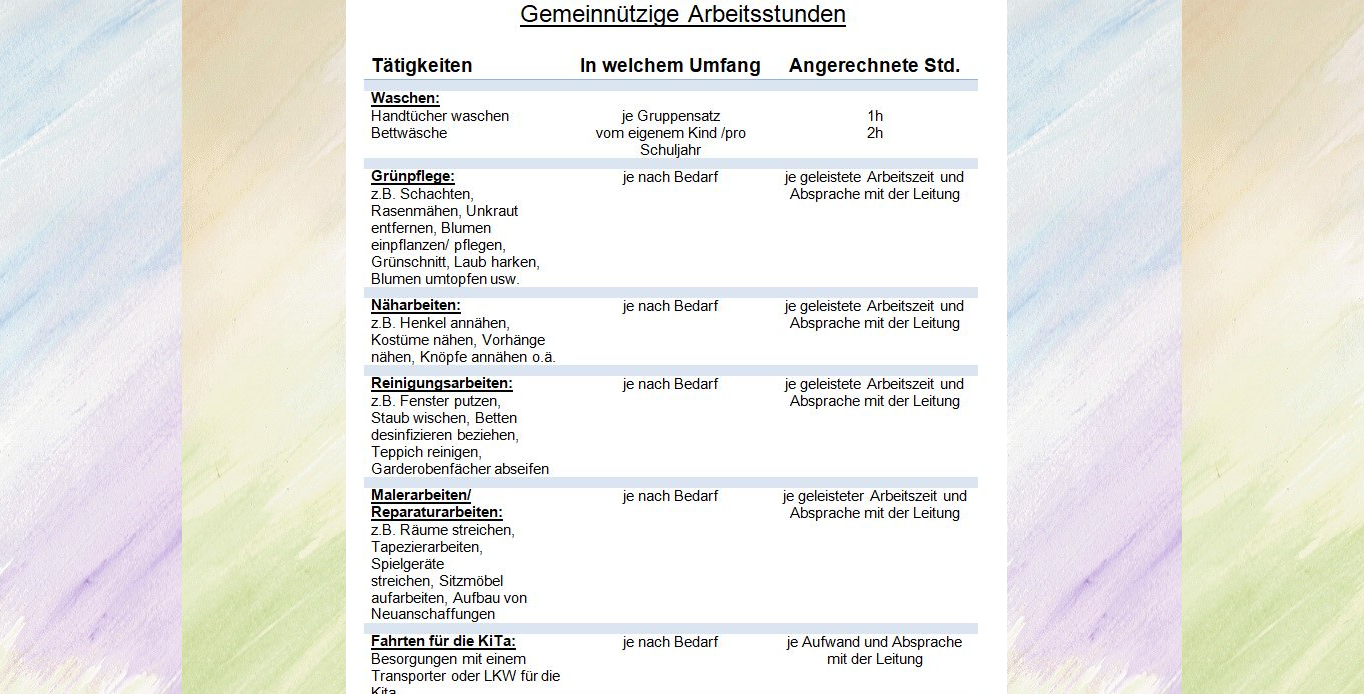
import math
import cairo

surface = cairo.ImageSurface(cairo.Format.RGB24, 1364, 694)
ctx = cairo.Context(surface)
options = cairo.FontOptions()
options.set_hint_metrics(cairo.HintMetrics.OFF)
options.set_hint_style(cairo.HintStyle.NONE)
ctx.set_font_options(options)
ctx.set_miter_limit(4)


def ink(r, g, b):
    ctx.set_source_rgb(r / 255, g / 255, b / 255)


def paste(path, x, y, w, h):
    ctx.save()
    ctx.set_source_surface(cairo.ImageSurface.create_from_png(path), x, y)
    ctx.rectangle(x, y, w, h)
    ctx.fill()
    ctx.restore()


ink(255, 255, 255)
ctx.paint()
paste("pic1.png", 0, 0, 1364, 694)
paste("pic2.png", 346, 0, 661, 694)
surface.write_to_png("screenshot.png")
